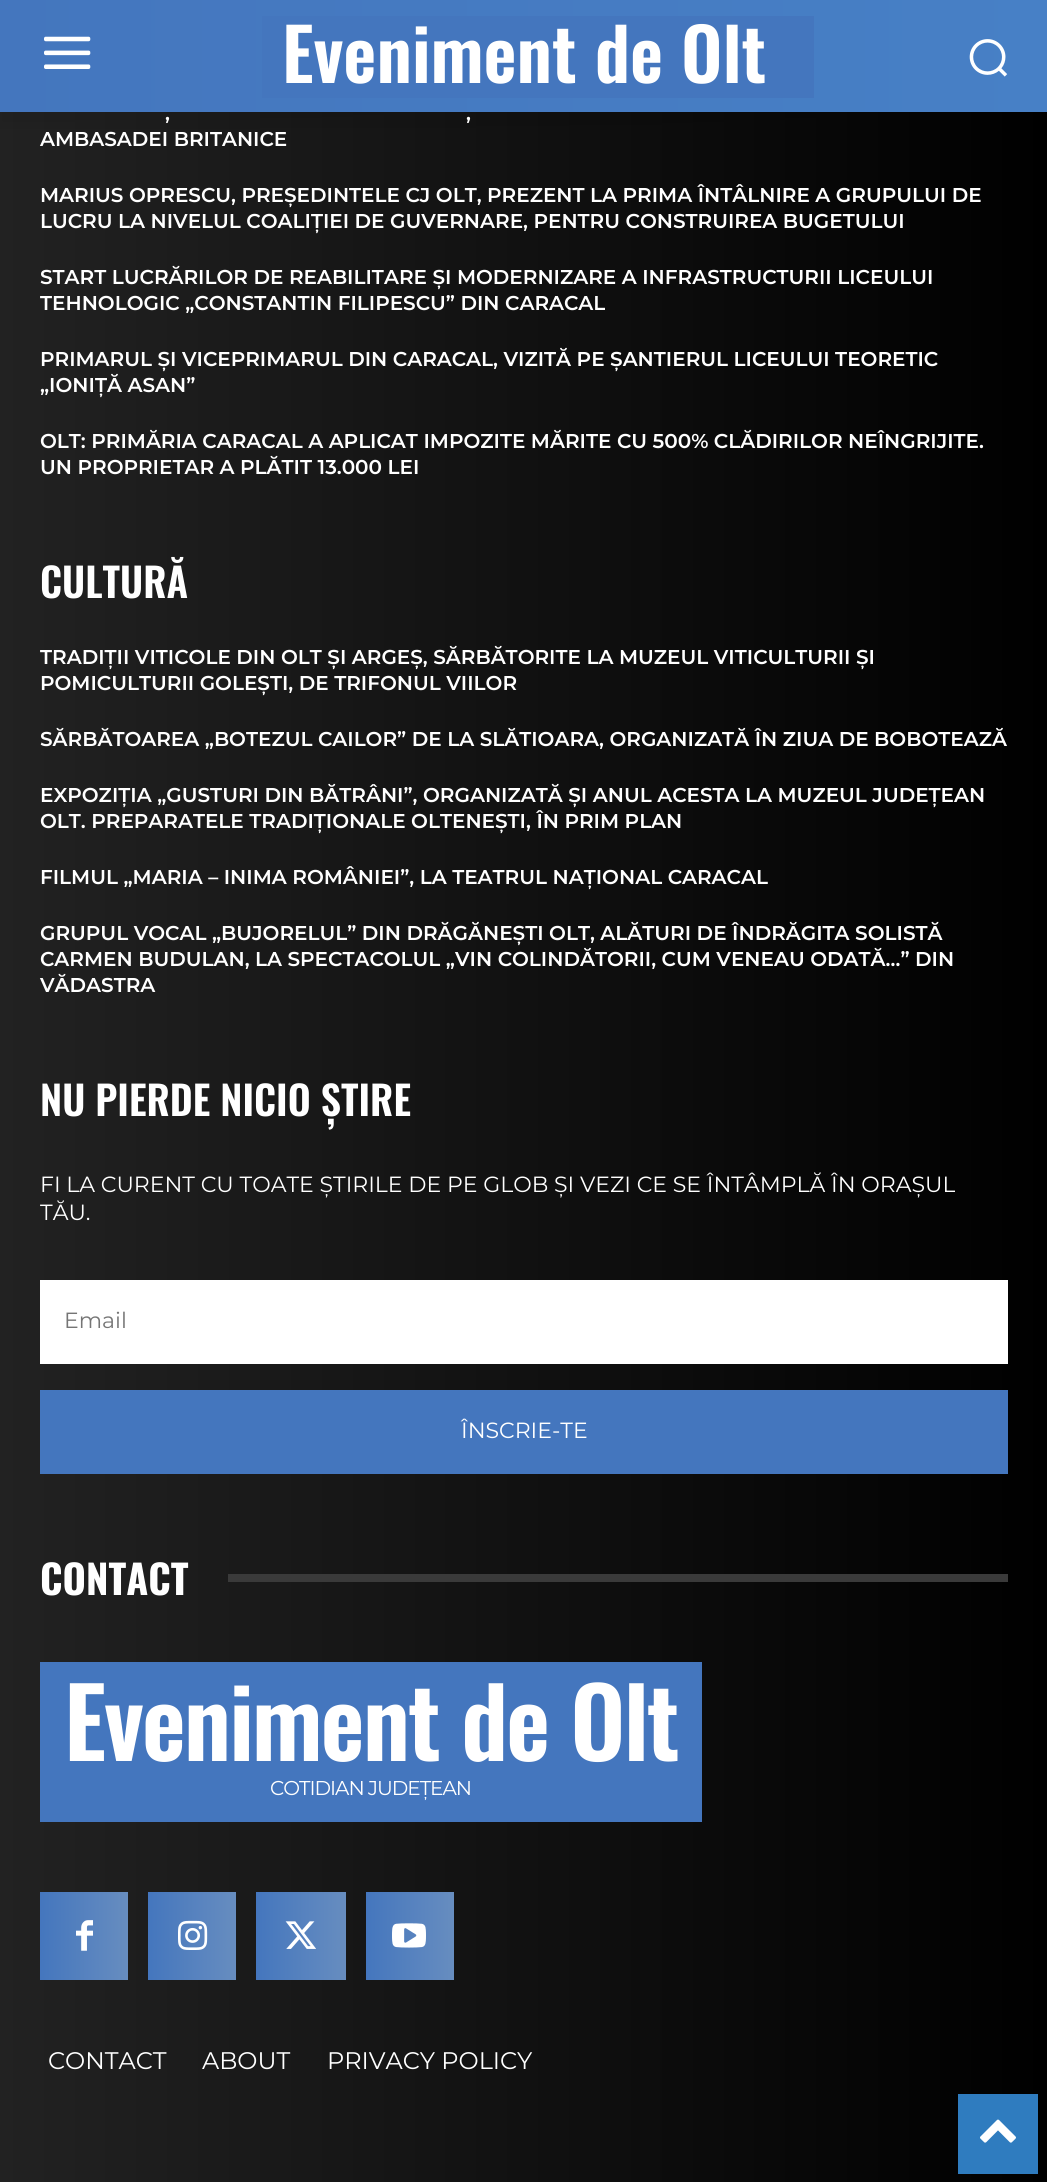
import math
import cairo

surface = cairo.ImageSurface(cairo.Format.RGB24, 1047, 2182)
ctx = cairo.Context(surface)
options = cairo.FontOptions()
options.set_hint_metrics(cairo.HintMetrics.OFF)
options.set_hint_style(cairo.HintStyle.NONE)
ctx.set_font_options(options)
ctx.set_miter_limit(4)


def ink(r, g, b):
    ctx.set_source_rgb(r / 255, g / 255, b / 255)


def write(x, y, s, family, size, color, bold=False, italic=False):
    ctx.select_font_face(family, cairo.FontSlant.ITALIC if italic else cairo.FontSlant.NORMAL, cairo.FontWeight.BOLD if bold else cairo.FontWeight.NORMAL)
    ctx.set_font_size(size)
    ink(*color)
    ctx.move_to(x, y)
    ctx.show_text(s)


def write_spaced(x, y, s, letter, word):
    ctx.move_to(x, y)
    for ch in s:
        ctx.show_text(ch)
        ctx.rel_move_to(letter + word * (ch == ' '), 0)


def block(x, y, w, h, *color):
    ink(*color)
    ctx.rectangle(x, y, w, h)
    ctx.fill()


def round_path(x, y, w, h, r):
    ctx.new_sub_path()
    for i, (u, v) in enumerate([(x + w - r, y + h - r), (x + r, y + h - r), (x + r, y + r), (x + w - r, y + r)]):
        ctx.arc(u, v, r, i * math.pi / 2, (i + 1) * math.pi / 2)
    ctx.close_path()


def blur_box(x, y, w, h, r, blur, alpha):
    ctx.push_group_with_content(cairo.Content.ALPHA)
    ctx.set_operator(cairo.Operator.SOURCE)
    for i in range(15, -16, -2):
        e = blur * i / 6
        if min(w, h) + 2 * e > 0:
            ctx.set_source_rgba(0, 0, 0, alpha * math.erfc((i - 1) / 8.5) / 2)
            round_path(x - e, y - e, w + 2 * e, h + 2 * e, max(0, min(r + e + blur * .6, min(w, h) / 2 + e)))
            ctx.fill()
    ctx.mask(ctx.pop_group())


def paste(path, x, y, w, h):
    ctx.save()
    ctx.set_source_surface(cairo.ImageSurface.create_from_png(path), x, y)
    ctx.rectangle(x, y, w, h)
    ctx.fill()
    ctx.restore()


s1 = dict(family="Oswald SemiBold", size=72, color=(255, 255, 255))
s2 = dict(family="Montserrat SemiBold", size=20, color=(255, 255, 255))
s3 = dict(family="Oswald SemiBold", size=40, color=(255, 255, 255))
s4 = dict(family="Montserrat", size=22, color=(255, 255, 255))
s5 = dict(family="Montserrat", size=22, color=(117, 117, 117))
s6 = dict(family="Oswald", size=40, color=(255, 255, 255), bold=True)
s7 = dict(family="Montserrat", size=24, color=(255, 255, 255))

ink(255, 255, 255)
ctx.paint()
gradient = cairo.LinearGradient(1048, 56, 0, 56)
gradient.add_color_stop_rgba(0, 0.278, 0.502, 0.776, 1)
gradient.add_color_stop_rgba(1, 0.267, 0.463, 0.745, 1)
ctx.set_source(gradient)
ctx.rectangle(0, 0, 1047, 112)
ctx.fill()
paste("pic1.png", 44, 36, 47, 33)
block(262, 16, 552, 82, 68, 118, 190)
paste("pic2.png", 969, 39, 39, 38)
gradient = cairo.LinearGradient(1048, 505, 0, 505)
gradient.add_color_stop_rgba(0, 0, 0, 0, 1)
gradient.add_color_stop_rgba(1, 0.133, 0.133, 0.133, 1)
ctx.set_source(gradient)
ctx.rectangle(0, 112, 1047, 2070)
ctx.fill()
ctx.save()
ctx.rectangle(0, 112, 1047, 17)
ctx.clip()
ink(0, 0, 0)
blur_box(0, 12, 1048, 112, 0, 8, 0.08)
ctx.restore()
write(282, 83, "Eveniment de Olt", **s1)
write(165, 120, ",", **s2)
write(466, 120, ",", **s2)
write(40, 146, "AMBASADEI BRITANICE", **s2)
write(40, 202, "MARIUS OPRESCU, PREȘEDINTELE CJ OLT, PREZENT LA PRIMA ÎNTÂLNIRE A GRUPULUI DE", **s2)
write(40, 228, "LUCRU LA NIVELUL COALIȚIEI DE GUVERNARE, PENTRU CONSTRUIREA BUGETULUI", **s2)
write(40, 284, "START LUCRĂRILOR DE REABILITARE ȘI MODERNIZARE A INFRASTRUCTURII LICEULUI", **s2)
write(40, 310, "TEHNOLOGIC „CONSTANTIN FILIPESCU” DIN CARACAL", **s2)
write(40, 366, "PRIMARUL ȘI VICEPRIMARUL DIN CARACAL, VIZITĂ PE ȘANTIERUL LICEULUI TEORETIC", **s2)
write(40, 392, "„IONIȚĂ ASAN”", **s2)
write(40, 448, "OLT: PRIMĂRIA CARACAL A APLICAT IMPOZITE MĂRITE CU 500% CLĂDIRILOR NEÎNGRIJITE.", **s2)
write(40, 474, "UN PROPRIETAR A PLĂTIT 13.000 LEI", **s2)
write(40, 598, "CULTURĂ", **s3)
write(40, 664, "TRADIȚII VITICOLE DIN OLT ȘI ARGEȘ, SĂRBĂTORITE LA MUZEUL VITICULTURII ȘI", **s2)
write(40, 690, "POMICULTURII GOLEȘTI, DE TRIFONUL VIILOR", **s2)
write(40, 746, "SĂRBĂTOAREA „BOTEZUL CAILOR” DE LA SLĂTIOARA, ORGANIZATĂ ÎN ZIUA DE BOBOTEAZĂ", **s2)
write(40, 802, "EXPOZIȚIA „GUSTURI DIN BĂTRÂNI”, ORGANIZATĂ ȘI ANUL ACESTA LA MUZEUL JUDEȚEAN", **s2)
write(40, 828, "OLT. PREPARATELE TRADIȚIONALE OLTENEȘTI, ÎN PRIM PLAN", **s2)
write(40, 884, "FILMUL „MARIA – INIMA ROMÂNIEI”, LA TEATRUL NAȚIONAL CARACAL", **s2)
write(40, 940, "GRUPUL VOCAL „BUJORELUL” DIN DRĂGĂNEȘTI OLT, ALĂTURI DE ÎNDRĂGITA SOLISTĂ", **s2)
write(40, 966, "CARMEN BUDULAN, LA SPECTACOLUL „VIN COLINDĂTORII, CUM VENEAU ODATĂ…” DIN", **s2)
write(40, 992, "VĂDASTRA", **s2)
write(40, 1116, "NU PIERDE NICIO ȘTIRE", **s3)
write(40, 1192, "FI LA CURENT CU TOATE ȘTIRILE DE PE GLOB ȘI VEZI CE SE ÎNTÂMPLĂ ÎN ORAȘUL", **s4)
write(40, 1220, "TĂU.", **s4)
block(40, 1280, 968, 84, 255, 255, 255)
write(64, 1328, "Email", **s5)
block(40, 1390, 968, 84, 68, 118, 190)
write(461, 1438, "ÎNSCRIE-TE", **s4)
write(40, 1595, "CONTACT", **s6)
block(228, 1574, 780, 8, 58, 58, 58)
block(40, 1662, 662, 160, 68, 118, 190)
ctx.select_font_face("Oswald SemiBold")
ctx.set_font_size(96)
ink(255, 255, 255)
write_spaced(64, 1761, "Eveniment de Olt", -2, 0)
ctx.select_font_face("Montserrat")
ctx.set_font_size(20)
write_spaced(270, 1795, "COTIDIAN JUDEȚEAN", -1, 0)
gradient = cairo.LinearGradient(128, 1936, 40, 1936)
gradient.add_color_stop_rgba(0, 0.404, 0.553, 0.749, 1)
gradient.add_color_stop_rgba(1, 0.267, 0.463, 0.745, 1)
ctx.set_source(gradient)
ctx.rectangle(40, 1892, 88, 88)
ctx.fill()
paste("pic3.png", 76, 1920, 17, 31)
gradient = cairo.LinearGradient(236, 1936, 148, 1936)
gradient.add_color_stop_rgba(0, 0.404, 0.553, 0.749, 1)
gradient.add_color_stop_rgba(1, 0.267, 0.463, 0.745, 1)
ctx.set_source(gradient)
ctx.rectangle(148, 1892, 88, 88)
ctx.fill()
paste("pic4.png", 178, 1920, 30, 30)
gradient = cairo.LinearGradient(346, 1936, 256, 1936)
gradient.add_color_stop_rgba(0, 0.404, 0.553, 0.749, 1)
gradient.add_color_stop_rgba(1, 0.267, 0.463, 0.745, 1)
ctx.set_source(gradient)
ctx.rectangle(256, 1892, 90, 88)
ctx.fill()
paste("pic5.png", 285, 1921, 31, 28)
gradient = cairo.LinearGradient(454, 1936, 366, 1936)
gradient.add_color_stop_rgba(0, 0.404, 0.553, 0.749, 1)
gradient.add_color_stop_rgba(1, 0.267, 0.463, 0.745, 1)
ctx.set_source(gradient)
ctx.rectangle(366, 1892, 88, 88)
ctx.fill()
paste("pic6.png", 392, 1923, 34, 25)
write(48, 2069, "CONTACT", **s7)
write(202, 2069, "ABOUT", **s7)
write(327, 2069, "PRIVACY POLICY", **s7)
block(958, 2094, 80, 80, 47, 124, 191)
paste("pic7.png", 980, 2119, 36, 24)
surface.write_to_png("screenshot.png")
